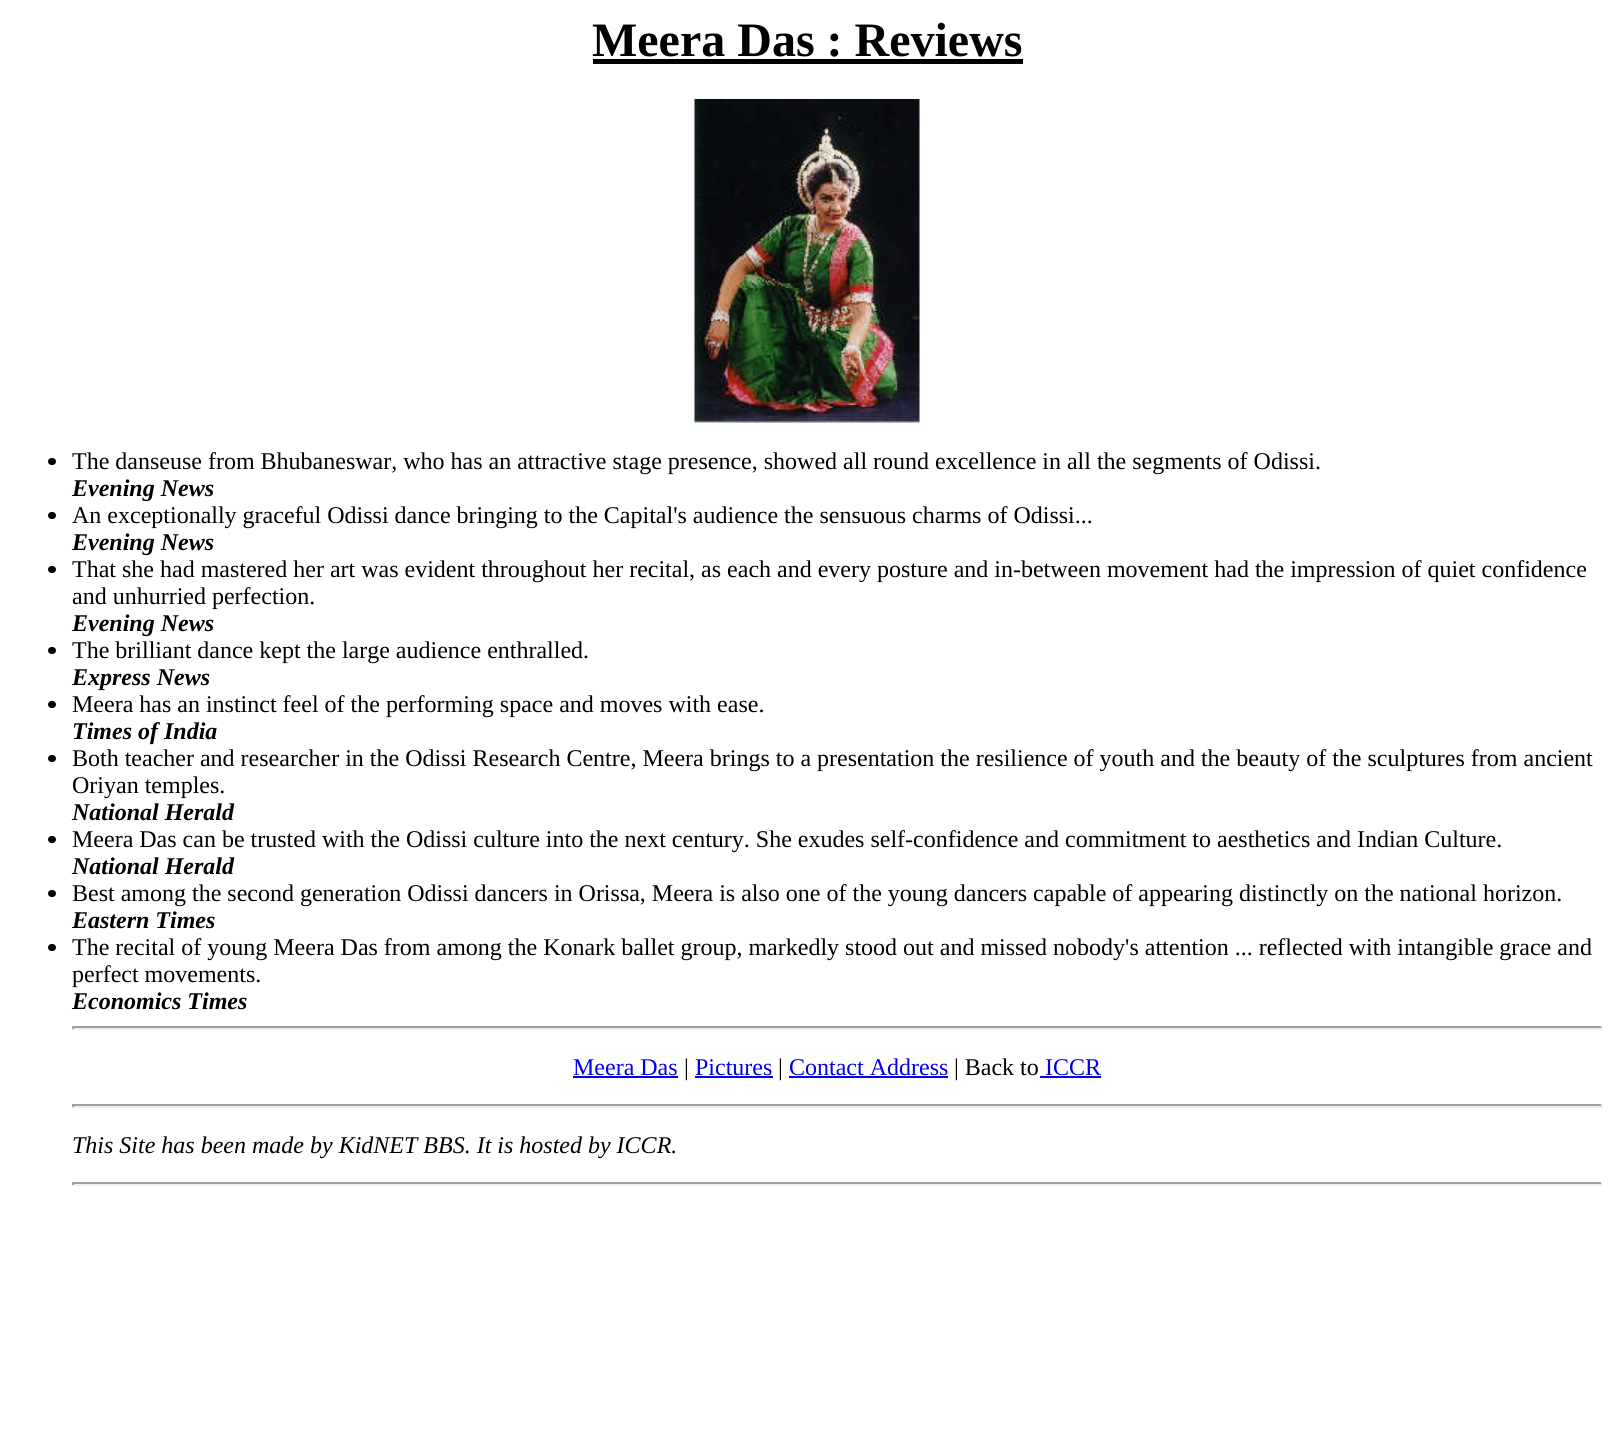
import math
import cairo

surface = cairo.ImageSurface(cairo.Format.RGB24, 1614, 1436)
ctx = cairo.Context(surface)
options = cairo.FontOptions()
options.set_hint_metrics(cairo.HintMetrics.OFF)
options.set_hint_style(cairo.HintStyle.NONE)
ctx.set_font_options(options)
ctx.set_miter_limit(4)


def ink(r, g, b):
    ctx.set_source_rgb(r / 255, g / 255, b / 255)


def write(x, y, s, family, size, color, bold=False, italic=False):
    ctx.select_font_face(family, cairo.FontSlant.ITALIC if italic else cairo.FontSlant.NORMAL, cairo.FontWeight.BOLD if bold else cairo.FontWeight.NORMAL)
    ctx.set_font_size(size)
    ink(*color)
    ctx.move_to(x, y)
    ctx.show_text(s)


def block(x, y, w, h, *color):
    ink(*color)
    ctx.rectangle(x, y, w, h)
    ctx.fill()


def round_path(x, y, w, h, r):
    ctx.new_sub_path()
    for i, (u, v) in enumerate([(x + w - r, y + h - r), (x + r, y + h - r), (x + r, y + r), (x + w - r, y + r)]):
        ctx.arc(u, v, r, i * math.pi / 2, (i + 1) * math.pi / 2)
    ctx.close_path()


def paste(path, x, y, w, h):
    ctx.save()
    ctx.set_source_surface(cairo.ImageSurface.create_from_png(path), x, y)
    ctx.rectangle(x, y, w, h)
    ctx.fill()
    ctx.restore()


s1 = dict(family="Liberation Serif", size=48, color=(0, 0, 0), bold=True)
s2 = dict(family="Liberation Serif", size=24, color=(0, 0, 0))
s3 = dict(family="Liberation Serif", size=24, color=(0, 0, 0), bold=True, italic=True)
s4 = dict(family="Liberation Serif", size=24, color=(0, 0, 238))
s5 = dict(family="Liberation Serif", size=24, color=(0, 0, 0), italic=True)

ink(255, 255, 255)
ctx.paint()
write(592, 56, "Meera Das : Reviews", **s1)
block(593, 59, 430, 5, 0, 0, 0)
paste("pic1.png", 694, 99, 226, 324)
round_path(48, 458, 8, 7, 3.5)
ctx.fill()
write(72, 469, "The danseuse from Bhubaneswar, who has an attractive stage presence, showed all round excellence in all the segments of Odissi.", **s2)
write(72, 496, "Evening News", **s3)
round_path(48, 512, 8, 7, 3.5)
ctx.fill()
write(72, 523, "An exceptionally graceful Odissi dance bringing to the Capital's audience the sensuous charms of Odissi...", **s2)
write(72, 550, "Evening News", **s3)
round_path(48, 566, 8, 7, 3.5)
ctx.fill()
write(72, 577, "That she had mastered her art was evident throughout her recital, as each and every posture and in-between movement had the impression of quiet confidence", **s2)
write(72, 604, "and unhurried perfection.", **s2)
write(72, 631, "Evening News", **s3)
round_path(48, 647, 8, 7, 3.5)
ctx.fill()
write(72, 658, "The brilliant dance kept the large audience enthralled.", **s2)
write(72, 685, "Express News", **s3)
round_path(48, 701, 8, 7, 3.5)
ctx.fill()
write(72, 712, "Meera has an instinct feel of the performing space and moves with ease.", **s2)
write(72, 739, "Times of India", **s3)
round_path(48, 755, 8, 7, 3.5)
ctx.fill()
write(72, 766, "Both teacher and researcher in the Odissi Research Centre, Meera brings to a presentation the resilience of youth and the beauty of the sculptures from ancient", **s2)
write(72, 793, "Oriyan temples.", **s2)
write(72, 820, "National Herald", **s3)
round_path(48, 836, 8, 7, 3.5)
ctx.fill()
write(72, 847, "Meera Das can be trusted with the Odissi culture into the next century. She exudes self-confidence and commitment to aesthetics and Indian Culture.", **s2)
write(72, 874, "National Herald", **s3)
round_path(48, 890, 8, 7, 3.5)
ctx.fill()
write(72, 901, "Best among the second generation Odissi dancers in Orissa, Meera is also one of the young dancers capable of appearing distinctly on the national horizon.", **s2)
write(72, 928, "Eastern Times", **s3)
round_path(48, 944, 8, 7, 3.5)
ctx.fill()
write(72, 955, "The recital of young Meera Das from among the Konark ballet group, markedly stood out and missed nobody's attention ... reflected with intangible grace and", **s2)
write(72, 982, "perfect movements.", **s2)
write(72, 1009, "Economics Times", **s3)
block(72, 1026, 1530, 2, 159, 159, 159)
block(1601, 1026, 2, 3, 238, 238, 238)
block(72, 1028, 1530, 2, 238, 238, 238)
block(72, 1026, 2, 3, 159, 159, 159)
write(573, 1075, "Meera Das", **s4)
block(573, 1076, 105, 2, 0, 0, 238)
write(684, 1075, "|", **s2)
write(695, 1075, "Pictures", **s4)
block(695, 1076, 78, 2, 0, 0, 238)
write(778, 1075, "|", **s2)
write(789, 1075, "Contact Address", **s4)
block(789, 1076, 159, 2, 0, 0, 238)
write(954, 1075, "| Back to", **s2)
write(1045, 1075, "ICCR", **s4)
block(1040, 1076, 61, 2, 0, 0, 238)
block(72, 1104, 1530, 2, 159, 159, 159)
block(1601, 1104, 2, 3, 238, 238, 238)
block(72, 1106, 1530, 2, 238, 238, 238)
block(72, 1104, 2, 3, 159, 159, 159)
write(72, 1153, "This Site has been made by KidNET BBS. It is hosted by ICCR.", **s5)
block(72, 1182, 1530, 2, 159, 159, 159)
block(1601, 1182, 2, 3, 238, 238, 238)
block(72, 1184, 1530, 2, 238, 238, 238)
block(72, 1182, 2, 3, 159, 159, 159)
surface.write_to_png("screenshot.png")
